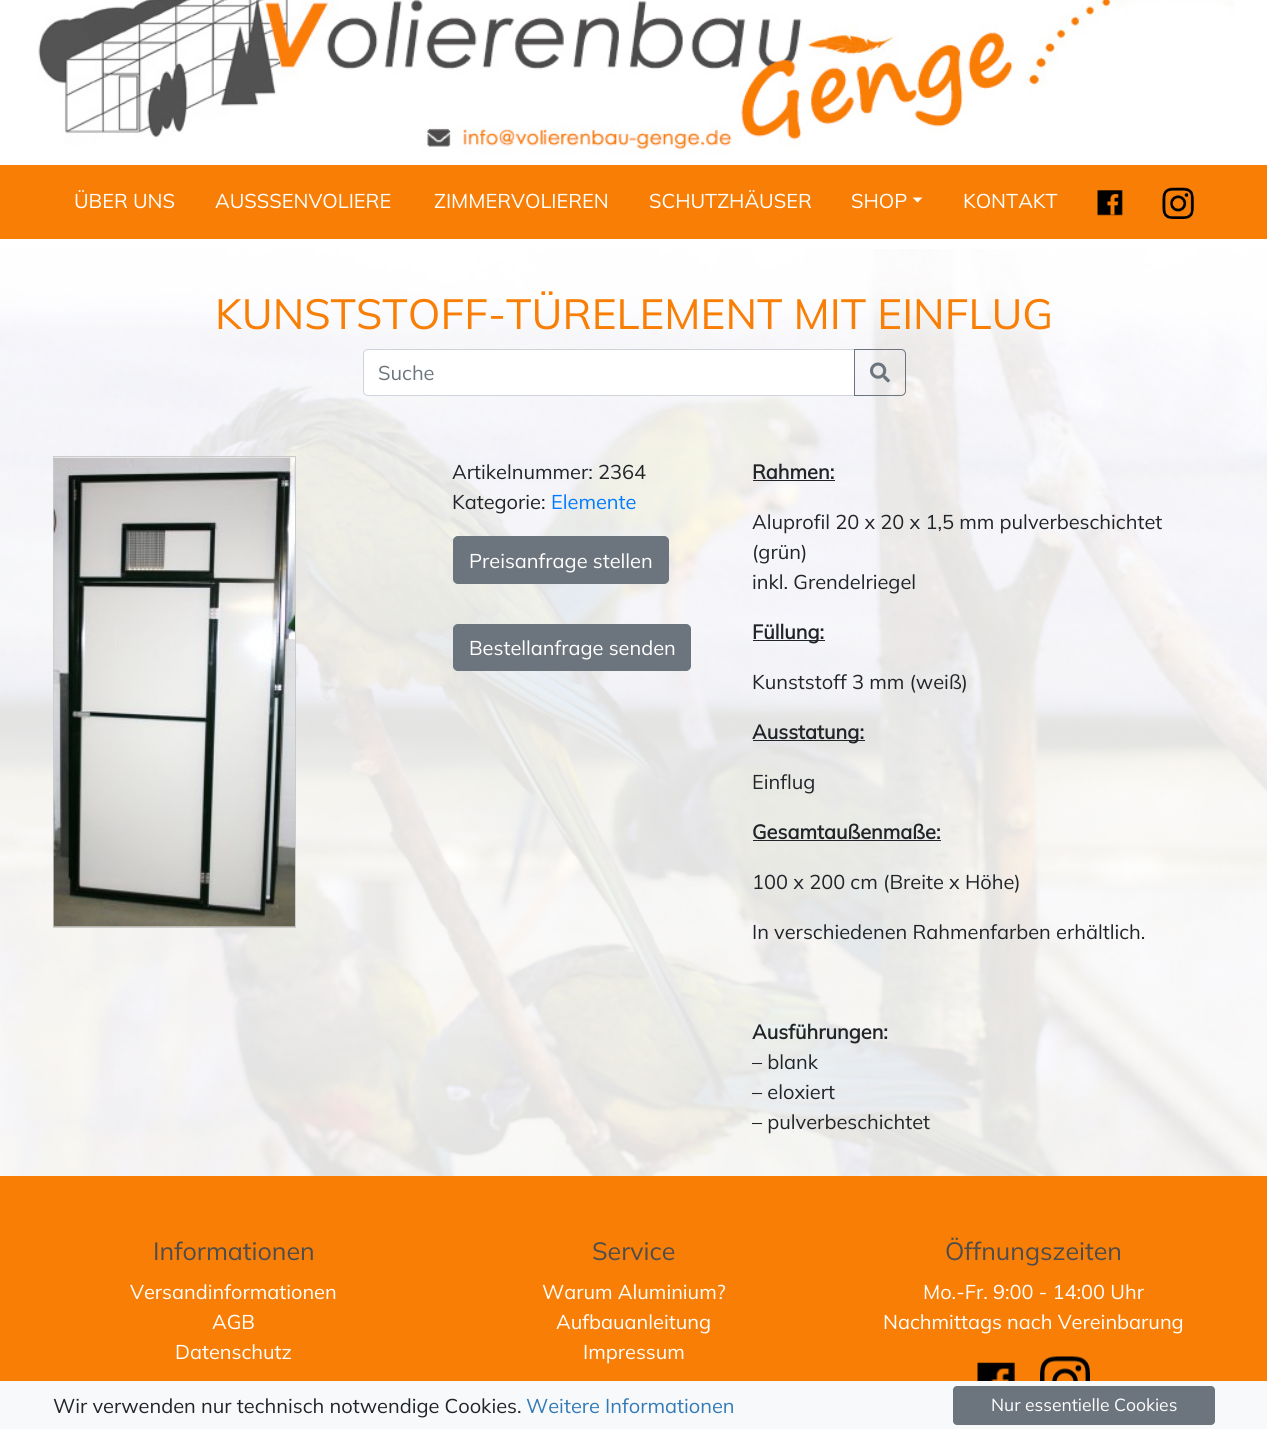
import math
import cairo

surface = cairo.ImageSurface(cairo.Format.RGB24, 1267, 1429)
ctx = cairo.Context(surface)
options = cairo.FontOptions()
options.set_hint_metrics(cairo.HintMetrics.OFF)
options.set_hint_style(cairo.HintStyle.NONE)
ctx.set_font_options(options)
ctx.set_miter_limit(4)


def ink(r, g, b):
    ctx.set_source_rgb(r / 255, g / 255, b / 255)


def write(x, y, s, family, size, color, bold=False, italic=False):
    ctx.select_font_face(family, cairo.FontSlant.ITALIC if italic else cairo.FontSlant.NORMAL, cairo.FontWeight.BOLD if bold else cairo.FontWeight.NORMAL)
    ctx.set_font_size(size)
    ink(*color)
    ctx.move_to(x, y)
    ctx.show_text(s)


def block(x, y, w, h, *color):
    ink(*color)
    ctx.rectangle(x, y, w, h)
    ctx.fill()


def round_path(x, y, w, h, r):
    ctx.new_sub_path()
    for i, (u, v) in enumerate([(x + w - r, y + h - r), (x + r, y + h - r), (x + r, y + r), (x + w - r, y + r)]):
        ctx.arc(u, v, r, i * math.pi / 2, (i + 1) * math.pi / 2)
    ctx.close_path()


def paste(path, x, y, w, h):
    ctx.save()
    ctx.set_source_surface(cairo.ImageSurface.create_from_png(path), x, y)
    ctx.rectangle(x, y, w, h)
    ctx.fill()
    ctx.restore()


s1 = dict(family="Mulish", size=20, color=(255, 255, 255))
s2 = dict(family="Mulish", size=42.25, color=(249, 126, 5))
s3 = dict(family="Mulish", size=20, color=(108, 117, 125))
s4 = dict(family="Mulish", size=20, color=(33, 37, 41))
s5 = dict(family="Mulish", size=20, color=(0, 123, 255))
s6 = dict(family="Mulish", size=20, color=(33, 37, 41), bold=True)
s7 = dict(family="Mulish", size=25, color=(78, 76, 76))
s8 = dict(family="Mulish", size=20, color=(51, 122, 183))
s9 = dict(family="Mulish", size=17.5, color=(255, 255, 255))

ink(255, 255, 255)
ctx.paint()
paste("pic1.png", 38, 0, 1197, 154)
block(0, 165, 1267, 74, 249, 126, 5)
write(74, 208, "ÜBER UNS", **s1)
write(215, 208, "AUSSSENVOLIERE", **s1)
write(434, 208, "ZIMMERVOLIEREN", **s1)
write(649, 208, "SCHUTZHÄUSER", **s1)
write(851, 208, "SHOP", **s1)
ctx.new_path()
ctx.move_to(912.5, 197.5)
ctx.line_to(922.5, 197.5)
ctx.line_to(917.5, 202.5)
ctx.close_path()
ctx.fill()
write(963, 208, "KONTAKT", **s1)
paste("pic2.png", 1097, 190, 26, 26)
paste("pic3.png", 1162, 187, 32, 32)
paste("pic4.png", 0, 249, 1267, 927)
write(215, 329, "KUNSTSTOFF-TÜRELEMENT MIT EINFLUG", **s2)
ink(255, 255, 255)
ctx.new_path()
ctx.move_to(368, 349.5)
ctx.line_to(854.5, 349.5)
ctx.line_to(854.5, 395.5)
ctx.line_to(368, 395.5)
ctx.curve_to(365.5, 395.5, 363.5, 393.5, 363.5, 391)
ctx.line_to(363.5, 354)
ctx.curve_to(363.5, 351.5, 365.5, 349.5, 368, 349.5)
ctx.close_path()
ctx.fill_preserve()
ink(206, 212, 218)
ctx.set_line_width(1)
ctx.stroke()
write(378, 380, "Suche", **s3)
ctx.new_path()
ctx.move_to(854.5, 349.5)
ctx.line_to(901, 349.5)
ctx.curve_to(903.5, 349.5, 905.5, 351.5, 905.5, 354)
ctx.line_to(905.5, 391)
ctx.curve_to(905.5, 393.5, 903.5, 395.5, 901, 395.5)
ctx.line_to(854.5, 395.5)
ctx.close_path()
ctx.stroke()
paste("pic5.png", 870, 362, 20, 21)
ctx.rectangle(53.5, 456.5, 242, 471)
ink(204, 204, 204)
ctx.stroke()
paste("pic6.png", 53, 457, 242, 470)
write(452, 479, "Artikelnummer: 2364", **s4)
write(452, 509, "Kategorie:", **s4)
write(551, 509, "Elemente", **s5)
ink(108, 117, 125)
round_path(453.5, 536.5, 215, 47, 4.5)
ctx.fill_preserve()
ctx.stroke()
write(469, 568, "Preisanfrage stellen", **s1)
ink(108, 117, 125)
round_path(453.5, 624.5, 237, 46, 4.5)
ctx.fill_preserve()
ctx.stroke()
write(469, 655, "Bestellanfrage senden", **s1)
write(752, 479, "Rahmen:", **s6)
block(753, 480, 82, 1, 33, 37, 41)
write(752, 529, "Aluprofil 20 x 20 x 1,5 mm pulverbeschichtet", **s4)
write(752, 559, "(grün)", **s4)
write(752, 589, "inkl. Grendelriegel", **s4)
block(753, 640, 72, 1, 33, 37, 41)
write(752, 639, "Füllung:", **s6)
write(752, 689, "Kunststoff 3 mm (weiß)", **s4)
block(753, 740, 112, 1, 33, 37, 41)
write(752, 739, "Ausstatung:", **s6)
write(752, 789, "Einflug", **s4)
write(752, 839, "Gesamtaußenmaße:", **s6)
block(753, 840, 188, 1, 33, 37, 41)
write(752, 889, "100 x 200 cm (Breite x Höhe)", **s4)
write(752, 939, "In verschiedenen Rahmenfarben erhältlich.", **s4)
write(752, 1039, "Ausführungen:", **s6)
write(752, 1069, "– blank", **s4)
write(752, 1099, "– eloxiert", **s4)
write(752, 1129, "– pulverbeschichtet", **s4)
block(0, 1176, 1267, 205, 249, 126, 5)
write(153, 1260, "Informationen", **s7)
write(130, 1299, "Versandinformationen", **s1)
write(212, 1329, "AGB", **s1)
write(175, 1359, "Datenschutz", **s1)
write(592, 1260, "Service", **s7)
write(542, 1299, "Warum Aluminium?", **s1)
write(556, 1329, "Aufbauanleitung", **s1)
write(583, 1359, "Impressum", **s1)
write(945, 1260, "Öffnungszeiten", **s7)
write(923, 1299, "Mo.-Fr. 9:00 - 14:00 Uhr", **s1)
write(883, 1329, "Nachmittags nach Vereinbarung", **s1)
paste("pic7.png", 977, 1362, 38, 19)
paste("pic8.png", 1040, 1356, 50, 25)
block(0, 1381, 1267, 48, 248, 249, 250)
write(53, 1413, "Wir verwenden nur technisch notwendige Cookies.", **s4)
write(526, 1413, "Weitere Informationen", **s8)
ink(108, 117, 125)
round_path(953.5, 1386.5, 261, 38, 3.5)
ctx.fill_preserve()
ctx.stroke()
write(991, 1411, "Nur essentielle Cookies", **s9)
surface.write_to_png("screenshot.png")
